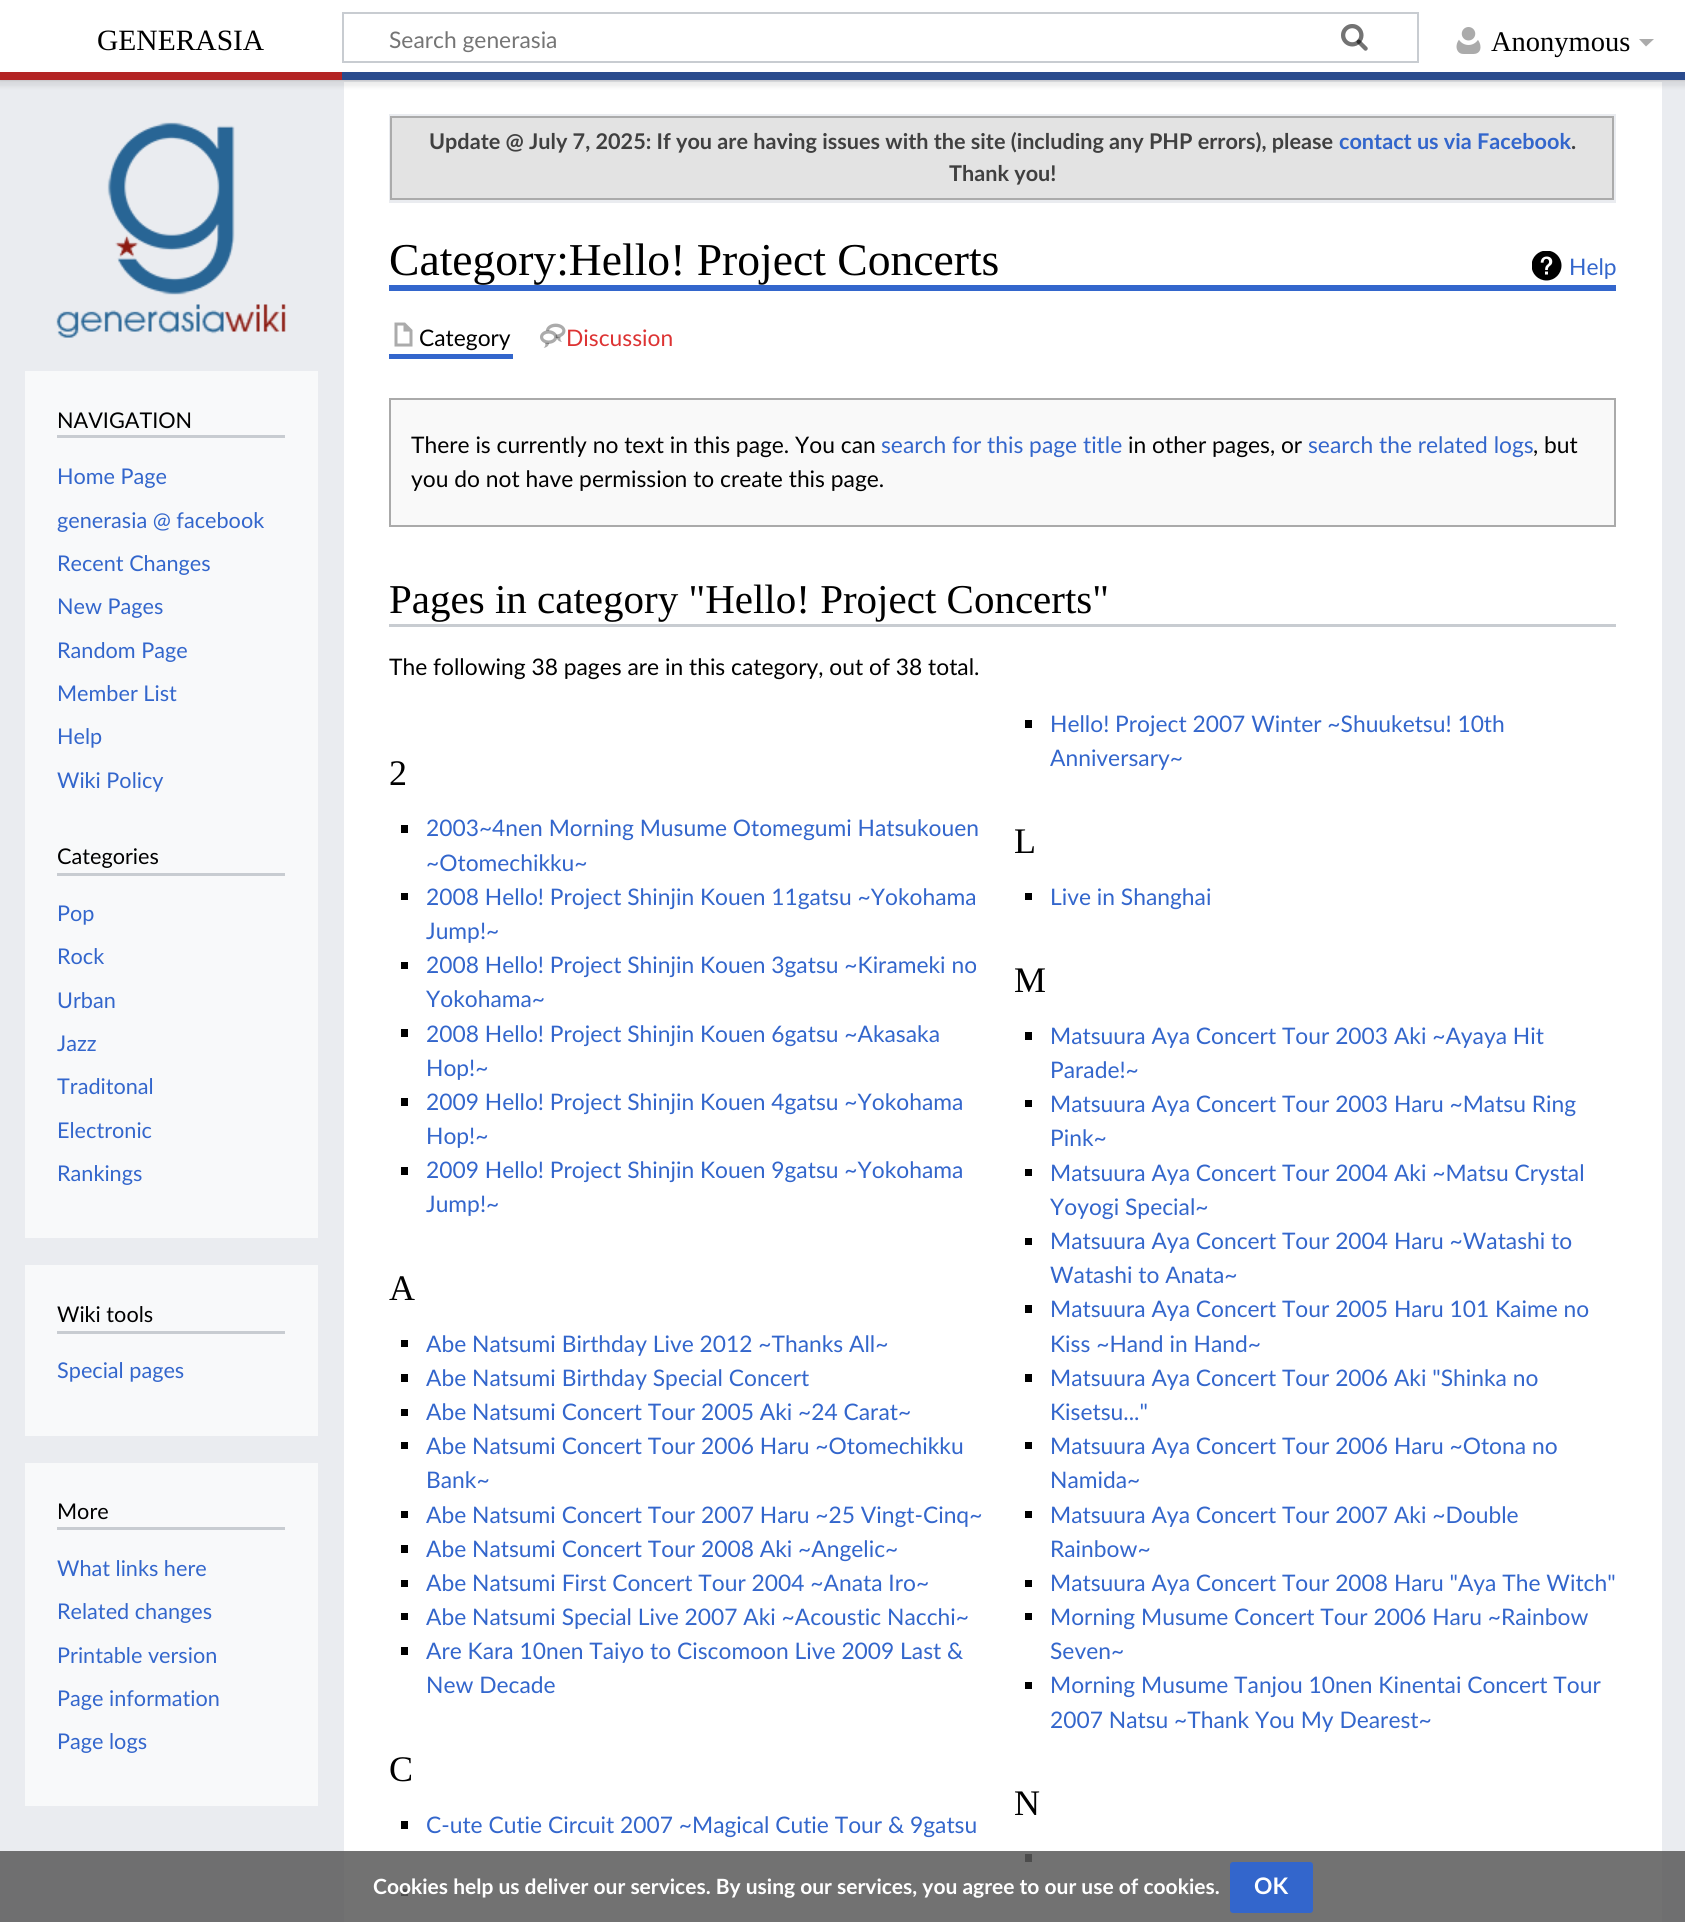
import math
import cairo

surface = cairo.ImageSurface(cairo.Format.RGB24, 1685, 1922)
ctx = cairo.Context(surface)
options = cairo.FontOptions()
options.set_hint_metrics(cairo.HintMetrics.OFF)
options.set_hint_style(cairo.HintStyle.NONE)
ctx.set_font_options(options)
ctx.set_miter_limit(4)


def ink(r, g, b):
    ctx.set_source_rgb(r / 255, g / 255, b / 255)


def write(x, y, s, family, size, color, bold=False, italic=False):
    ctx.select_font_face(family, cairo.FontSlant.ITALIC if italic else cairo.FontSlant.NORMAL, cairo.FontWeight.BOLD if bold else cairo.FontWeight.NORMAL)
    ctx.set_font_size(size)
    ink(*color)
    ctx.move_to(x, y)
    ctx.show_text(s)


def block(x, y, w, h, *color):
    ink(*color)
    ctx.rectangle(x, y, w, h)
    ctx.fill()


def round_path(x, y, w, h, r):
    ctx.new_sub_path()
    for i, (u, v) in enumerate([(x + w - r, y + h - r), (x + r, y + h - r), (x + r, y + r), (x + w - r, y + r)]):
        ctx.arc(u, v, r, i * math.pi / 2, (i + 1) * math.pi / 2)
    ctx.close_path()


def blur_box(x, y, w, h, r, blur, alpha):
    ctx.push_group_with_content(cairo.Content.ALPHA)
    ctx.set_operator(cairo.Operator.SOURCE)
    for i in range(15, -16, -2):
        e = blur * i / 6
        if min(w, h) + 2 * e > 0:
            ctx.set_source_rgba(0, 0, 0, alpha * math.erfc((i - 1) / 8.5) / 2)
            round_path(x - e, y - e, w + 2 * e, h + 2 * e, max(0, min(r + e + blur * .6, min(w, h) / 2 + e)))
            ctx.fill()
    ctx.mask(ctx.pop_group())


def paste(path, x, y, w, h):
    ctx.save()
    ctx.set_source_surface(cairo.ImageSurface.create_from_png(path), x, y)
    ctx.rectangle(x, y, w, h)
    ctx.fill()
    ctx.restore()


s1 = dict(family="Liberation Serif", size=29.5, color=(0, 0, 0))
s2 = dict(family="Lato", size=22.8, color=(117, 117, 117))
s3 = dict(family="Liberation Serif", size=28.5, color=(0, 0, 0))
s4 = dict(family="Lato", size=21.65, color=(0, 0, 0))
s5 = dict(family="Lato", size=21.65, color=(51, 102, 204))
s6 = dict(family="Lato", size=21.65, color=(64, 64, 64), bold=True)
s7 = dict(family="Lato", size=21.65, color=(51, 102, 204), bold=True)
s8 = dict(family="Liberation Serif", size=45.6, color=(0, 0, 0))
s9 = dict(family="Lato", size=22.8, color=(51, 102, 204))
s10 = dict(family="Lato", size=22.8, color=(0, 0, 0))
s11 = dict(family="Lato", size=22.8, color=(221, 51, 51))
s12 = dict(family="Liberation Serif", size=41, color=(0, 0, 0))
s13 = dict(family="Liberation Serif", size=36, color=(0, 0, 0))
s14 = dict(family="Lato", size=21, color=(255, 255, 255), bold=True)
s15 = dict(family="Lato", size=22.8, color=(255, 255, 255), bold=True)

ink(234, 236, 240)
ctx.paint()
block(344, 82, 1318, 1840, 255, 255, 255)
ink(0, 0, 0)
blur_box(0, 72, 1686, 8, 0, 1.5, 0.2)
blur_box(-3, 74, 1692, 13, 0, 2, 0.07)
block(0, 0, 1685, 72, 255, 255, 255)
write(97, 50, "GENERASIA", **s1)
ctx.rectangle(343, 13, 1075, 49)
ink(200, 204, 209)
ctx.stroke()
paste("pic1.png", 1341, 24, 27, 27)
write(389, 48, "Search generasia", **s2)
paste("pic2.png", 1341, 24, 27, 27)
paste("pic3.png", 1456, 27, 25, 27)
write(1491, 51, "Anonymous", **s3)
ink(171, 171, 171)
ctx.new_path()
ctx.move_to(1654, 39)
ctx.line_to(1646, 46.5)
ctx.line_to(1639, 39)
ctx.close_path()
ctx.fill()
block(0, 72, 342, 8, 179, 36, 36)
block(342, 72, 1343, 8, 42, 75, 141)
paste("pic4.png", 56, 122, 230, 216)
block(25, 371, 293, 867, 248, 249, 250)
block(57, 435, 228, 3, 200, 204, 209)
write(57, 428, "NAVIGATION", **s4)
write(57, 484, "Home Page", **s5)
write(57, 528, "generasia @ facebook", **s5)
write(57, 571, "Recent Changes", **s5)
write(57, 614, "New Pages", **s5)
write(57, 658, "Random Page", **s5)
write(57, 701, "Member List", **s5)
write(57, 744, "Help", **s5)
write(57, 788, "Wiki Policy", **s5)
block(57, 873, 228, 3, 200, 204, 209)
write(57, 864, "Categories", **s4)
write(57, 921, "Pop", **s5)
write(57, 964, "Rock", **s5)
write(57, 1008, "Urban", **s5)
write(57, 1051, "Jazz", **s5)
write(57, 1094, "Traditonal", **s5)
write(57, 1138, "Electronic", **s5)
write(57, 1181, "Rankings", **s5)
block(25, 1265, 293, 171, 248, 249, 250)
block(57, 1331, 228, 3, 200, 204, 209)
write(57, 1322, "Wiki tools", **s4)
write(57, 1378, "Special pages", **s5)
block(389, 114, 1227, 2, 234, 236, 240)
block(1614, 114, 2, 89, 234, 236, 240)
block(389, 200, 1227, 3, 234, 236, 240)
block(389, 114, 2, 89, 234, 236, 240)
ink(227, 227, 227)
ctx.rectangle(391, 117, 1222, 82)
ctx.fill_preserve()
ink(171, 171, 171)
ctx.stroke()
write(429, 149, "Update @ July 7, 2025: If you are having issues with the site (including any PHP errors), please", **s6)
write(1339, 149, "contact us via Facebook", **s7)
write(1571, 149, ".", **s6)
write(949, 181, "Thank you!", **s6)
block(389, 285, 1227, 6, 51, 102, 204)
write(389, 275, "Category:Hello! Project Concerts", **s8)
paste("pic5.png", 1532, 251, 30, 30)
write(1569, 275, "Help", **s9)
block(389, 354, 124, 5, 51, 102, 204)
paste("pic6.png", 394, 322, 19, 25)
write(419, 346, "Category", **s10)
paste("pic7.png", 540, 323, 26, 25)
write(566, 346, "Discussion", **s11)
ink(249, 249, 249)
ctx.rectangle(390, 399, 1225, 127)
ctx.fill_preserve()
ink(170, 170, 170)
ctx.stroke()
write(411, 453, "There is currently no text in this page. You can", **s10)
write(881, 453, "search for this page title", **s9)
write(1128, 453, "in other pages, or", **s10)
write(1308, 453, "search the related logs", **s9)
write(1533, 453, ", but", **s10)
write(411, 487, "you do not have permission to create this page.", **s10)
block(389, 624, 1227, 3, 200, 204, 209)
write(389, 613, "Pages in category \"Hello! Project Concerts\"", **s12)
write(389, 675, "The following 38 pages are in this category, out of 38 total.", **s10)
block(1025, 720, 7, 8, 0, 0, 0)
write(1050, 732, "Hello! Project 2007 Winter ~Shuuketsu! 10th", **s9)
write(1050, 766, "Anniversary~", **s9)
write(389, 785, "2", **s13)
block(401, 825, 7, 8, 0, 0, 0)
write(426, 836, "2003~4nen Morning Musume Otomegumi Hatsukouen", **s9)
write(426, 871, "~Otomechikku~", **s9)
block(401, 893, 7, 7, 0, 0, 0)
write(426, 905, "2008 Hello! Project Shinjin Kouen 11gatsu ~Yokohama", **s9)
write(426, 939, "Jump!~", **s9)
block(401, 962, 7, 7, 0, 0, 0)
write(426, 973, "2008 Hello! Project Shinjin Kouen 3gatsu ~Kirameki no", **s9)
write(426, 1007, "Yokohama~", **s9)
block(401, 1029, 7, 8, 0, 0, 0)
write(426, 1042, "2008 Hello! Project Shinjin Kouen 6gatsu ~Akasaka", **s9)
write(426, 1076, "Hop!~", **s9)
block(401, 1098, 7, 8, 0, 0, 0)
write(426, 1110, "2009 Hello! Project Shinjin Kouen 4gatsu ~Yokohama", **s9)
write(426, 1144, "Hop!~", **s9)
block(401, 1167, 7, 8, 0, 0, 0)
write(426, 1178, "2009 Hello! Project Shinjin Kouen 9gatsu ~Yokohama", **s9)
write(426, 1212, "Jump!~", **s9)
write(1014, 853, "L", **s13)
block(1025, 893, 7, 7, 0, 0, 0)
write(1050, 905, "Live in Shanghai", **s9)
write(389, 1300, "A", **s13)
block(401, 1340, 7, 7, 0, 0, 0)
write(426, 1352, "Abe Natsumi Birthday Live 2012 ~Thanks All~", **s9)
block(401, 1374, 7, 8, 0, 0, 0)
write(426, 1386, "Abe Natsumi Birthday Special Concert", **s9)
block(401, 1409, 7, 7, 0, 0, 0)
write(426, 1420, "Abe Natsumi Concert Tour 2005 Aki ~24 Carat~", **s9)
block(401, 1442, 7, 7, 0, 0, 0)
write(426, 1454, "Abe Natsumi Concert Tour 2006 Haru ~Otomechikku", **s9)
write(426, 1488, "Bank~", **s9)
block(401, 1511, 7, 7, 0, 0, 0)
write(426, 1523, "Abe Natsumi Concert Tour 2007 Haru ~25 Vingt-Cinq~", **s9)
block(401, 1545, 7, 8, 0, 0, 0)
write(426, 1557, "Abe Natsumi Concert Tour 2008 Aki ~Angelic~", **s9)
block(401, 1580, 7, 7, 0, 0, 0)
write(426, 1591, "Abe Natsumi First Concert Tour 2004 ~Anata Iro~", **s9)
block(401, 1613, 7, 7, 0, 0, 0)
write(426, 1625, "Abe Natsumi Special Live 2007 Aki ~Acoustic Nacchi~", **s9)
block(401, 1647, 7, 8, 0, 0, 0)
write(426, 1659, "Are Kara 10nen Taiyo to Ciscomoon Live 2009 Last &", **s9)
write(426, 1693, "New Decade", **s9)
write(1014, 992, "M", **s13)
block(1025, 1032, 7, 8, 0, 0, 0)
write(1050, 1044, "Matsuura Aya Concert Tour 2003 Aki ~Ayaya Hit", **s9)
write(1050, 1078, "Parade!~", **s9)
block(1025, 1100, 7, 7, 0, 0, 0)
write(1050, 1112, "Matsuura Aya Concert Tour 2003 Haru ~Matsu Ring", **s9)
write(1050, 1146, "Pink~", **s9)
block(1025, 1169, 7, 7, 0, 0, 0)
write(1050, 1181, "Matsuura Aya Concert Tour 2004 Aki ~Matsu Crystal", **s9)
write(1050, 1215, "Yoyogi Special~", **s9)
block(1025, 1238, 7, 7, 0, 0, 0)
write(1050, 1249, "Matsuura Aya Concert Tour 2004 Haru ~Watashi to", **s9)
write(1050, 1283, "Watashi to Anata~", **s9)
block(1025, 1305, 7, 8, 0, 0, 0)
write(1050, 1317, "Matsuura Aya Concert Tour 2005 Haru 101 Kaime no", **s9)
write(1050, 1352, "Kiss ~Hand in Hand~", **s9)
block(1025, 1374, 7, 8, 0, 0, 0)
write(1050, 1386, "Matsuura Aya Concert Tour 2006 Aki \"Shinka no", **s9)
write(1050, 1420, "Kisetsu...\"", **s9)
block(1025, 1442, 7, 7, 0, 0, 0)
write(1050, 1454, "Matsuura Aya Concert Tour 2006 Haru ~Otona no", **s9)
write(1050, 1488, "Namida~", **s9)
block(1025, 1511, 7, 7, 0, 0, 0)
write(1050, 1523, "Matsuura Aya Concert Tour 2007 Aki ~Double", **s9)
write(1050, 1557, "Rainbow~", **s9)
block(1025, 1580, 7, 7, 0, 0, 0)
write(1050, 1591, "Matsuura Aya Concert Tour 2008 Haru \"Aya The Witch\"", **s9)
block(1025, 1613, 7, 7, 0, 0, 0)
write(1050, 1625, "Morning Musume Concert Tour 2006 Haru ~Rainbow", **s9)
write(1050, 1659, "Seven~", **s9)
block(1025, 1682, 7, 7, 0, 0, 0)
write(1050, 1693, "Morning Musume Tanjou 10nen Kinentai Concert Tour", **s9)
write(1050, 1728, "2007 Natsu ~Thank You My Dearest~", **s9)
write(389, 1781, "C", **s13)
block(401, 1821, 7, 8, 0, 0, 0)
write(426, 1833, "C-ute Cutie Circuit 2007 ~Magical Cutie Tour & 9gatsu", **s9)
block(401, 1889, 7, 7, 0, 0, 0)
write(1014, 1815, "N", **s13)
block(1025, 1854, 7, 8, 0, 0, 0)
ctx.set_source_rgba(0.353, 0.353, 0.353, 0.85)
ctx.rectangle(0, 1851, 1685, 71)
ctx.fill()
write(373, 1894, "Cookies help us deliver our services. By using our services, you agree to our use of cookies.", **s14)
ink(51, 102, 204)
round_path(1231, 1863, 81, 49, 2)
ctx.fill_preserve()
ctx.stroke()
write(1254, 1894, "OK", **s15)
block(25, 1463, 293, 343, 248, 249, 250)
block(57, 1527, 228, 3, 200, 204, 209)
write(57, 1519, "More", **s4)
write(57, 1576, "What links here", **s5)
write(57, 1619, "Related changes", **s5)
write(57, 1663, "Printable version", **s5)
write(57, 1706, "Page information", **s5)
write(57, 1749, "Page logs", **s5)
surface.write_to_png("screenshot.png")
